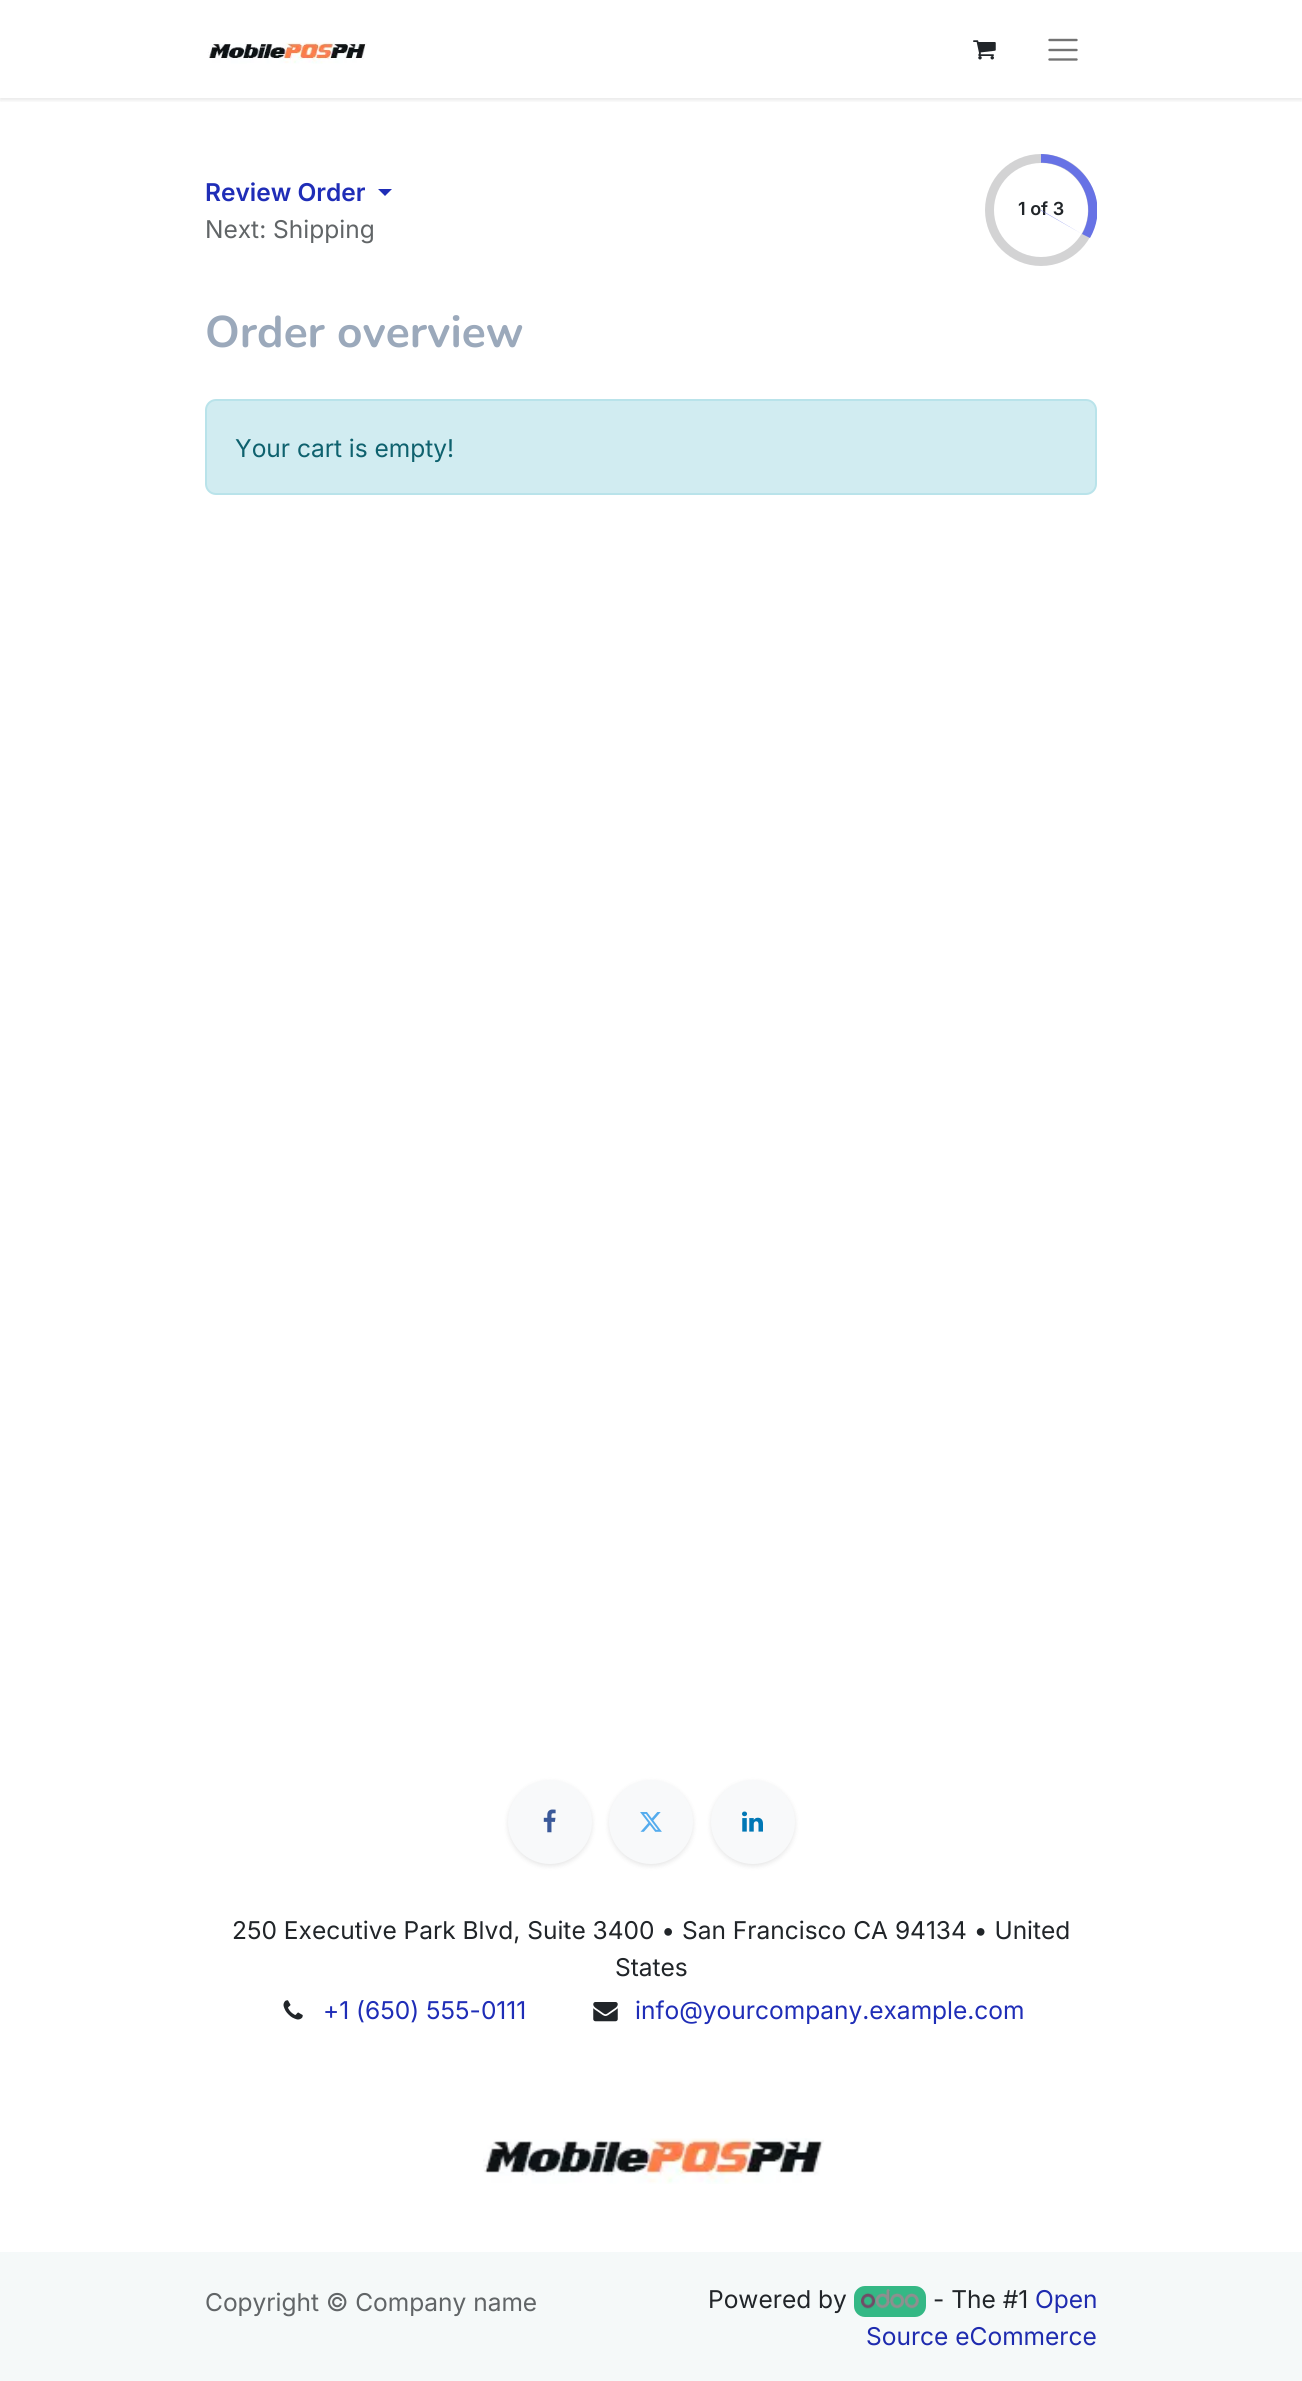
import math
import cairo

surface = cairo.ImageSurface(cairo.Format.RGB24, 1302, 2381)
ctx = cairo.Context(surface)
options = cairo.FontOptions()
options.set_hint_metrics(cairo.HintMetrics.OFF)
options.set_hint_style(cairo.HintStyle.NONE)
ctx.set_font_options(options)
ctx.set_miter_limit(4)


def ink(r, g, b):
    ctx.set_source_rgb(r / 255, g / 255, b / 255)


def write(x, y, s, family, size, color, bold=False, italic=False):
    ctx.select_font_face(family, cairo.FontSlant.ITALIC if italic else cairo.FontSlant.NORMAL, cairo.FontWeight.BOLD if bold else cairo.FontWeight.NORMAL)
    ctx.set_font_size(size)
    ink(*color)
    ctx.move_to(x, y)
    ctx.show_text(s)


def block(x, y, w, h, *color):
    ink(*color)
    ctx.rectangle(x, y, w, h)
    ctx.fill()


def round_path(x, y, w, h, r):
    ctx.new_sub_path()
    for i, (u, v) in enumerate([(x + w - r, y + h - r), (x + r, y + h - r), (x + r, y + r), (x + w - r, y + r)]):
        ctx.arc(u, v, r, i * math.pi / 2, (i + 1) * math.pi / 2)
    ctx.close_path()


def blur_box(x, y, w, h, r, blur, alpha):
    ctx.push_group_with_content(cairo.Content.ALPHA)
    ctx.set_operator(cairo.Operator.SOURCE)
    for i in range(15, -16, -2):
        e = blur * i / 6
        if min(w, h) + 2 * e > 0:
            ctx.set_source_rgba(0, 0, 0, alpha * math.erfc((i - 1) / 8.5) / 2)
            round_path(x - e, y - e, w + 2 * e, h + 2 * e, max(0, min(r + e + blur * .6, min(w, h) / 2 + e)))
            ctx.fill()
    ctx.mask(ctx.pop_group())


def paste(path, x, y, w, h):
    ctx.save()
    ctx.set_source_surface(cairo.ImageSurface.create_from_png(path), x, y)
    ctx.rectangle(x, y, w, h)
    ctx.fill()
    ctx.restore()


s1 = dict(family="Inter SemiBold", size=24.5, color=(31, 45, 183))
s2 = dict(family="Inter", size=24.5, color=(97, 101, 103))
s3 = dict(family="Inter SemiBold", size=18, color=(33, 37, 41))
s4 = dict(family="Nunito", size=44.25, color=(155, 169, 187), bold=True)
s5 = dict(family="Inter", size=24.5, color=(14, 97, 110))
s6 = dict(family="Inter", size=24.5, color=(33, 37, 41))
s7 = dict(family="Inter", size=24.5, color=(31, 45, 183))
s8 = dict(family="Inter", size=24.5, color=(30, 43, 175))

ink(255, 255, 255)
ctx.paint()
ctx.save()
ctx.rectangle(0, 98, 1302, 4)
ctx.clip()
ink(0, 0, 0)
blur_box(0, 2, 1302, 98, 0, 2.5, 0.1)
ctx.restore()
paste("pic1.png", 208, 42, 159, 22)
paste("pic2.png", 973, 40, 23, 20)
ctx.new_path()
ctx.move_to(1049.5, 40)
ctx.line_to(1076.5, 40)
ctx.move_to(1049.5, 50)
ctx.line_to(1076.5, 50)
ctx.move_to(1049.5, 59.5)
ctx.line_to(1076.5, 59.5)
ink(115, 115, 115)
ctx.set_line_width(2.4)
ctx.set_line_cap(cairo.LineCap.ROUND)
ctx.stroke()
write(205, 201, "Review Order", **s1)
ctx.new_path()
ctx.move_to(378, 189)
ctx.line_to(392, 189)
ctx.line_to(385, 196)
ctx.close_path()
ctx.fill()
write(205, 238, "Next: Shipping", **s2)
write(1018, 215, "1 of 3", **s3)
ctx.new_path()
ctx.arc(1041, 210, 51.5, 0, 2 * math.pi)
ink(211, 211, 212)
ctx.set_line_width(9)
ctx.set_line_cap(cairo.LineCap.BUTT)
ctx.stroke()
ctx.save()
ctx.rectangle(1041, 154, 56, 112)
ctx.clip()
ink(103, 114, 229)
ctx.set_fill_rule(cairo.FillRule.EVEN_ODD)
ctx.new_path()
ctx.move_to(1011, 163)
ctx.curve_to(1059, 132, 1119, 187, 1090, 238)
ctx.line_to(1082, 234)
ctx.curve_to(1095, 211, 1087, 182, 1065, 169)
ctx.curve_to(1042, 156, 1014, 164, 1000, 186)
ctx.line_to(993, 182)
ctx.curve_to(997, 174, 1004, 168, 1011, 163)
ctx.close_path()
ctx.move_to(1082, 234)
ctx.line_to(1000, 186)
ctx.line_to(1000, 187)
ctx.close_path()
ctx.fill()
ctx.restore()
write(205, 347, "Order overview", **s4)
ink(209, 236, 241)
round_path(206, 400, 890, 94, 10)
ctx.fill_preserve()
ink(185, 227, 234)
ctx.set_line_width(2)
ctx.stroke()
write(235, 457, "Your cart is empty!", **s5)
ink(0, 0, 0)
blur_box(508, 1782, 84, 84, 42, 2.5, 0.1)
ink(248, 249, 250)
ctx.arc(550, 1822, 42, 0, 2 * math.pi)
ctx.fill()
paste("pic3.png", 543, 1809, 13, 24)
ink(0, 0, 0)
blur_box(609, 1782, 84, 84, 42, 2.5, 0.1)
ink(248, 249, 250)
ctx.arc(651, 1822, 42, 0, 2 * math.pi)
ctx.fill()
paste("pic4.png", 640, 1812, 22, 20)
ink(0, 0, 0)
blur_box(711, 1782, 84, 84, 42, 2.5, 0.1)
ink(248, 249, 250)
ctx.arc(753, 1822, 42, 0, 2 * math.pi)
ctx.fill()
paste("pic5.png", 742, 1811, 21, 21)
write(232, 1939, "250 Executive Park Blvd, Suite 3400 • San Francisco CA 94134 • United", **s6)
write(615, 1976, "States", **s6)
paste("pic6.png", 283, 2000, 20, 20)
write(323, 2019, "+1 (650) 555-0111", **s7)
paste("pic7.png", 593, 2002, 25, 20)
write(635, 2019, "info@yourcompany.example.com", **s7)
paste("pic8.png", 483, 2138, 341, 46)
block(0, 2252, 1302, 129, 245, 249, 249)
write(205, 2311, "Copyright © Company name", **s2)
write(708, 2308, "Powered by", **s6)
ink(52, 184, 133)
round_path(854, 2286, 72, 31, 11)
ctx.fill()
paste("pic9.png", 861, 2289, 58, 20)
write(933, 2308, "- The #1", **s6)
write(1035, 2308, "Open", **s8)
write(866, 2345, "Source eCommerce", **s8)
surface.write_to_png("screenshot.png")
